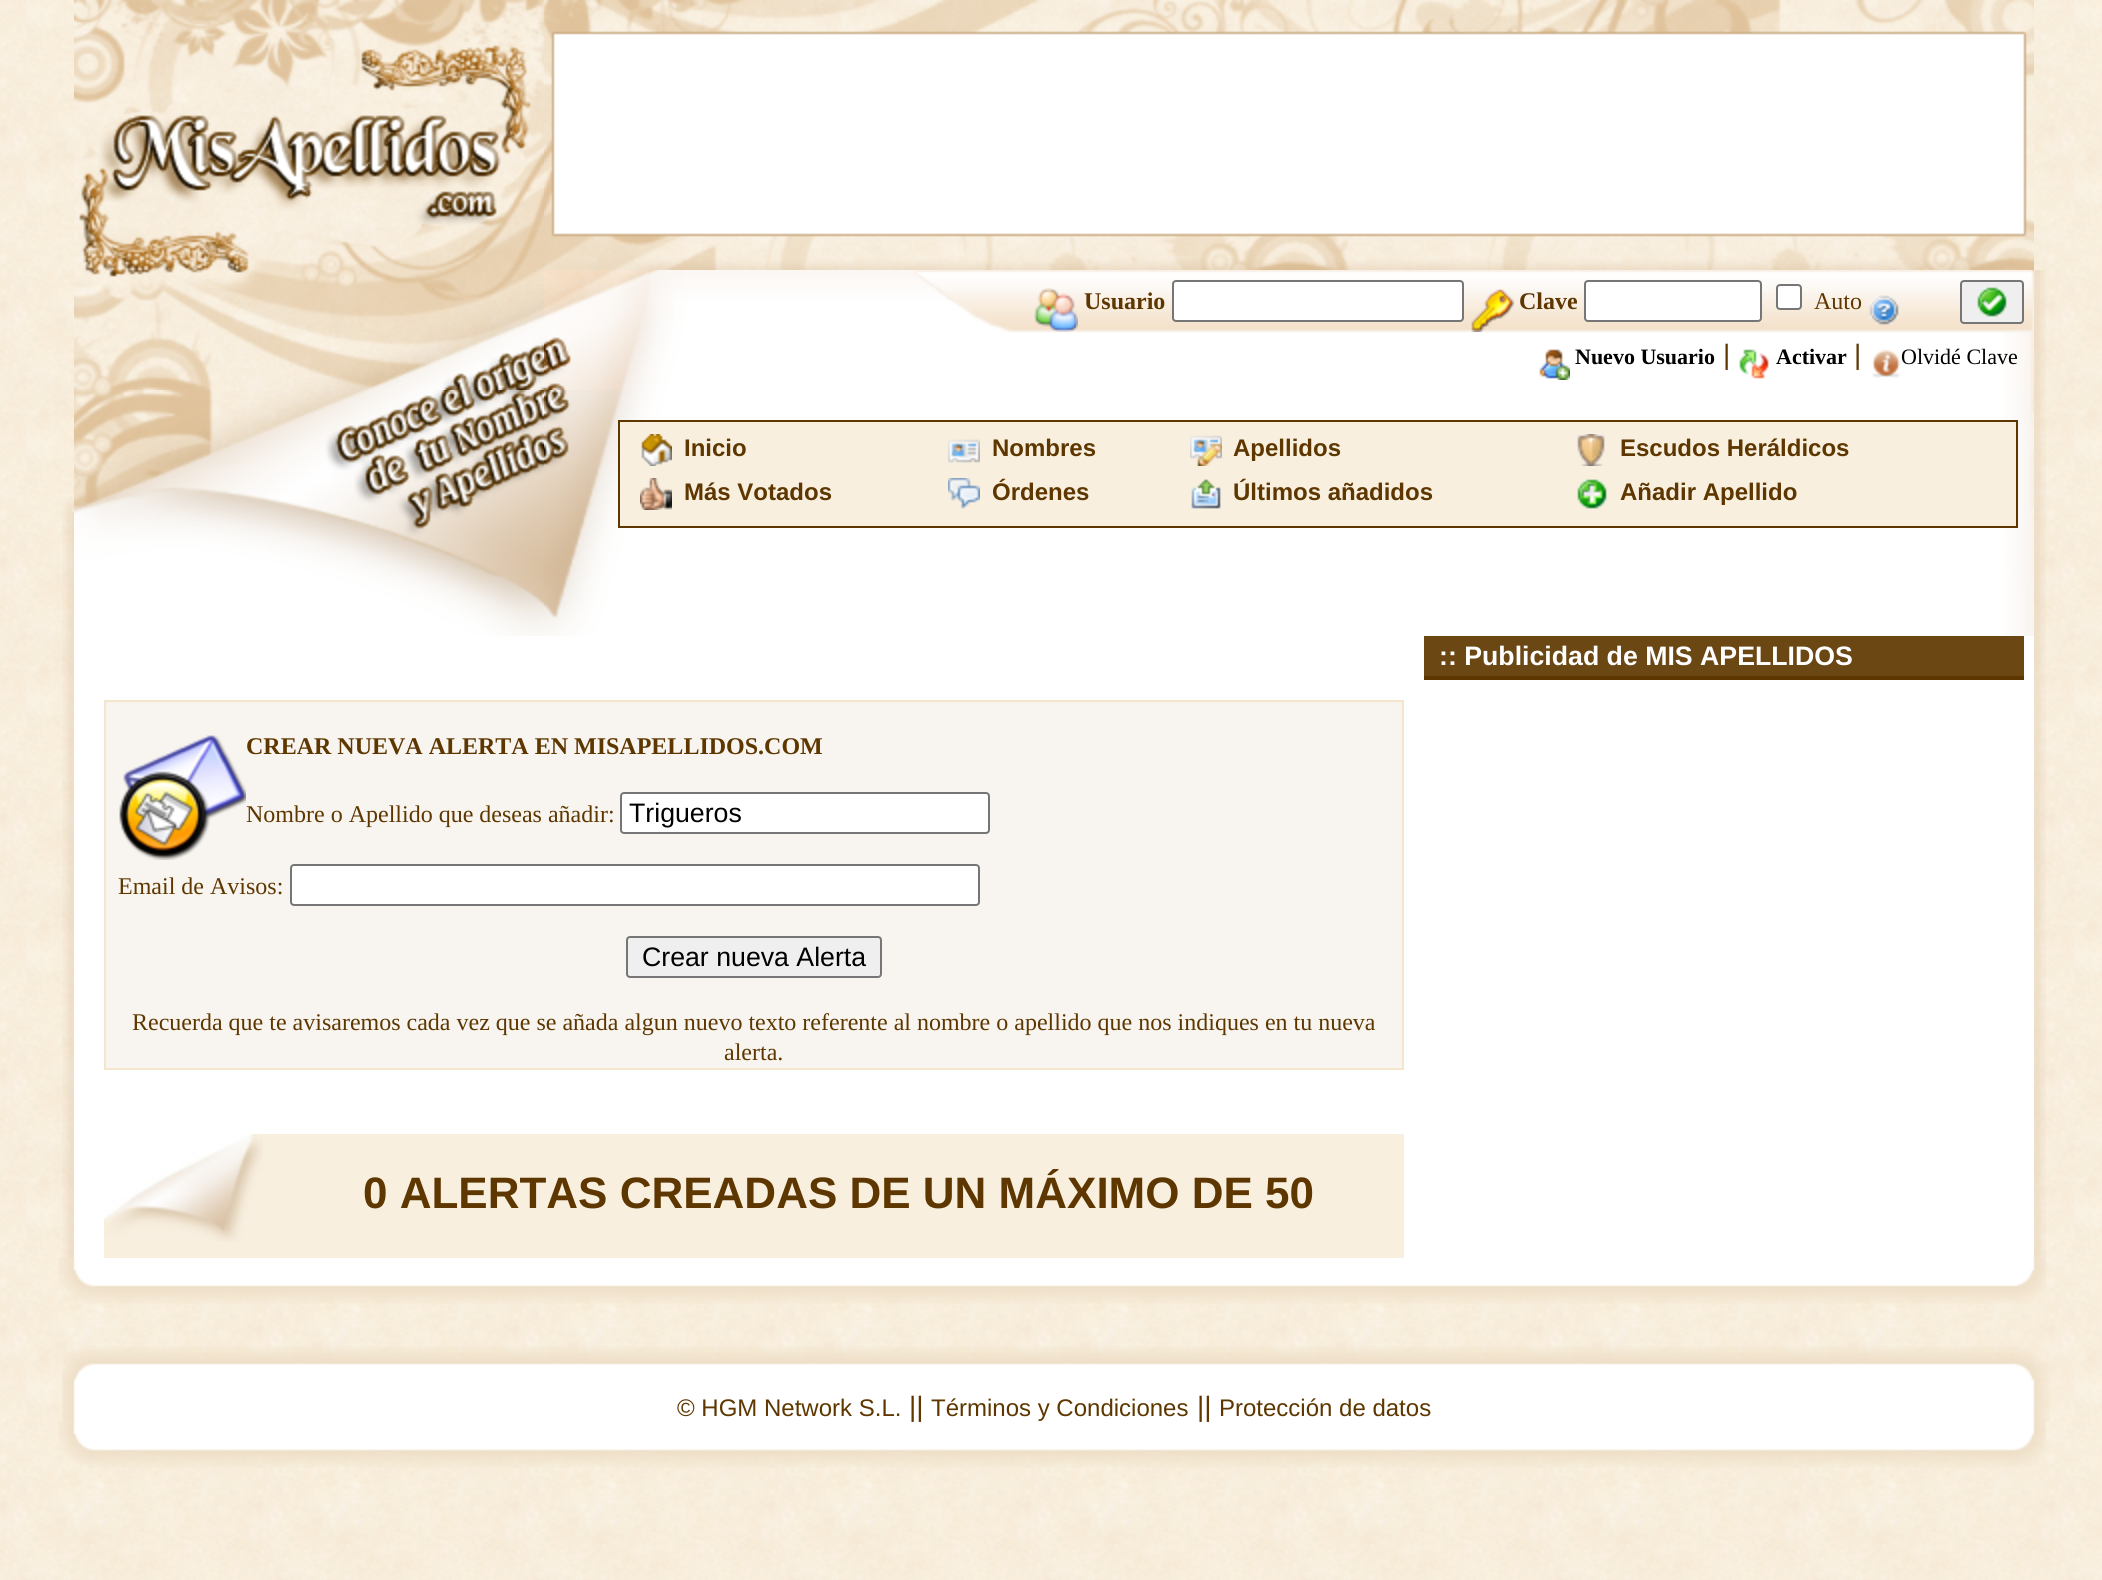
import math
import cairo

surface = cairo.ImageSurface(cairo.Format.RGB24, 2102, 1580)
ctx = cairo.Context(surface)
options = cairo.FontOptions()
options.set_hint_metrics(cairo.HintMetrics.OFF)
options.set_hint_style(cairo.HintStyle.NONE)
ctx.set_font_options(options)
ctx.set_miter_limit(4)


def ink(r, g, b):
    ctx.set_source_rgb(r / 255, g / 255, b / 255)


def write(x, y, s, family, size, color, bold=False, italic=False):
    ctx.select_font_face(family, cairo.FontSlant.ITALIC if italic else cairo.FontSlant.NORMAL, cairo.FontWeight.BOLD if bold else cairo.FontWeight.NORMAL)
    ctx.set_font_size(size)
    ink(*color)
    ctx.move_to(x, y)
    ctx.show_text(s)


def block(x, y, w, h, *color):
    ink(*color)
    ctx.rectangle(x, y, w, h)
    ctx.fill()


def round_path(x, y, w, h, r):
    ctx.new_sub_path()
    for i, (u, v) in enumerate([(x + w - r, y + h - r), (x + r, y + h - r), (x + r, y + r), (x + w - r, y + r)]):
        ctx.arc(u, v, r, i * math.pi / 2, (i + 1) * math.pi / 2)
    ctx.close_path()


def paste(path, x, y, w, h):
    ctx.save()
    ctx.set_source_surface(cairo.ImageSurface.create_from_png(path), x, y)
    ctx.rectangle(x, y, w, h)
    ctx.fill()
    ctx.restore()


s1 = dict(family="Liberation Serif", size=24, color=(94, 55, 0), bold=True)
s2 = dict(family="Liberation Serif", size=24, color=(94, 55, 0))
s3 = dict(family="Liberation Serif", size=22, color=(0, 0, 0), bold=True)
s4 = dict(family="Liberation Sans", size=28, color=(94, 55, 0))
s5 = dict(family="Liberation Serif", size=22, color=(0, 0, 0))
s6 = dict(family="Liberation Sans", size=24, color=(94, 55, 0), bold=True)
s7 = dict(family="Liberation Sans", size=26.7, color=(255, 255, 255), bold=True)
s8 = dict(family="Liberation Sans", size=26.7, color=(0, 0, 0))
s9 = dict(family="Liberation Sans", size=44, color=(94, 55, 0), bold=True)
s10 = dict(family="Liberation Sans", size=24, color=(94, 55, 0))

ink(255, 255, 255)
ctx.paint()
paste("pic1.png", 0, 0, 2102, 1580)
paste("pic2.png", 74, 0, 470, 390)
paste("pic3.png", 544, 0, 1490, 270)
paste("pic4.png", 544, 270, 1490, 120)
paste("pic5.png", 1034, 288, 44, 44)
write(1084, 309, "Usuario", **s1)
ink(255, 255, 255)
round_path(1173, 281, 290, 40, 3)
ctx.fill_preserve()
ink(118, 118, 118)
ctx.stroke()
paste("pic6.png", 1471, 289, 43, 43)
write(1519, 309, "Clave", **s1)
ink(255, 255, 255)
round_path(1585, 281, 176, 40, 3)
ctx.fill_preserve()
ink(118, 118, 118)
ctx.stroke()
ink(255, 255, 255)
round_path(1777, 285, 24, 24, 3)
ctx.fill_preserve()
ink(118, 118, 118)
ctx.stroke()
write(1814, 309, "Auto", **s2)
paste("pic7.png", 1869, 295, 30, 30)
ink(239, 239, 239)
round_path(1961, 281, 62, 42, 3)
ctx.fill_preserve()
ink(118, 118, 118)
ctx.stroke()
paste("pic8.png", 1977, 287, 30, 30)
paste("pic9.png", 1539, 349, 31, 31)
write(1575, 364, "Nuevo Usuario", **s3)
write(1723, 364, "|", **s4)
paste("pic10.png", 1739, 349, 30, 30)
write(1776, 364, "Activar", **s3)
write(1854, 364, "|", **s4)
paste("pic11.png", 1872, 349, 29, 29)
write(1901, 364, "Olvidé Clave", **s5)
paste("pic12.png", 2034, 270, 12, 120)
paste("pic13.png", 74, 390, 470, 246)
paste("pic14.png", 544, 390, 1490, 246)
ink(248, 239, 223)
ctx.rectangle(619, 421, 1398, 106)
ctx.fill_preserve()
ink(94, 55, 0)
ctx.stroke()
paste("pic15.png", 641, 434, 31, 32)
write(684, 456, "Inicio", **s6)
paste("pic16.png", 948, 439, 32, 24)
write(992, 456, "Nombres", **s6)
paste("pic17.png", 1190, 435, 32, 31)
write(1233, 456, "Apellidos", **s6)
paste("pic18.png", 1577, 434, 28, 32)
write(1620, 456, "Escudos Heráldicos", **s6)
paste("pic19.png", 640, 478, 32, 32)
write(684, 500, "Más Votados", **s6)
paste("pic20.png", 948, 478, 32, 31)
write(992, 500, "Órdenes", **s6)
paste("pic21.png", 1191, 479, 30, 30)
write(1233, 500, "Últimos añadidos", **s6)
paste("pic22.png", 1577, 479, 30, 30)
write(1620, 500, "Añadir Apellido", **s6)
paste("pic23.png", 2034, 390, 12, 246)
paste("pic24.png", 62, 497, 12, 139)
paste("pic25.png", 62, 636, 12, 622)
block(74, 636, 1960, 622, 255, 255, 255)
block(1424, 636, 600, 40, 107, 71, 20)
write(1439, 665, ":: Publicidad de MIS APELLIDOS", **s7)
block(1424, 676, 600, 4, 94, 55, 0)
ink(248, 245, 240)
ctx.rectangle(105, 701, 1298, 368)
ctx.fill_preserve()
ink(244, 230, 204)
ctx.stroke()
paste("pic26.png", 119, 735, 127, 125)
write(246, 754, "CREAR NUEVA ALERTA EN MISAPELLIDOS.COM", **s1)
write(246, 822, "Nombre o Apellido que deseas añadir:", **s2)
ink(255, 255, 255)
round_path(621, 793, 368, 40, 3)
ctx.fill_preserve()
ink(118, 118, 118)
ctx.stroke()
write(629, 822, "Trigueros", **s8)
write(118, 894, "Email de Avisos:", **s2)
ink(255, 255, 255)
round_path(291, 865, 688, 40, 3)
ctx.fill_preserve()
ink(118, 118, 118)
ctx.stroke()
ink(239, 239, 239)
round_path(627, 937, 254, 40, 3)
ctx.fill_preserve()
ink(118, 118, 118)
ctx.stroke()
write(642, 966, "Crear nueva Alerta", **s8)
write(132, 1030, "Recuerda que te avisaremos cada vez que se añada algun nuevo texto referente al nombre o apellido que nos indiques en tu nueva", **s2)
write(724, 1060, "alerta.", **s2)
block(104, 1134, 1300, 124, 248, 239, 223)
paste("pic27.png", 104, 1134, 159, 108)
write(363, 1208, "0 ALERTAS CREADAS DE UN MÁXIMO DE 50", **s9)
paste("pic28.png", 2034, 636, 12, 622)
paste("pic29.png", 58, 1258, 1988, 46)
paste("pic30.png", 62, 1346, 1988, 44)
paste("pic31.png", 62, 1390, 1988, 32)
write(677, 1416, "© HGM Network S.L.", **s10)
write(909, 1416, "||", **s4)
write(931, 1416, "Términos y Condiciones", **s10)
write(1197, 1416, "||", **s4)
write(1219, 1416, "Protección de datos", **s10)
paste("pic32.png", 58, 1422, 1988, 46)
surface.write_to_png("screenshot.png")
